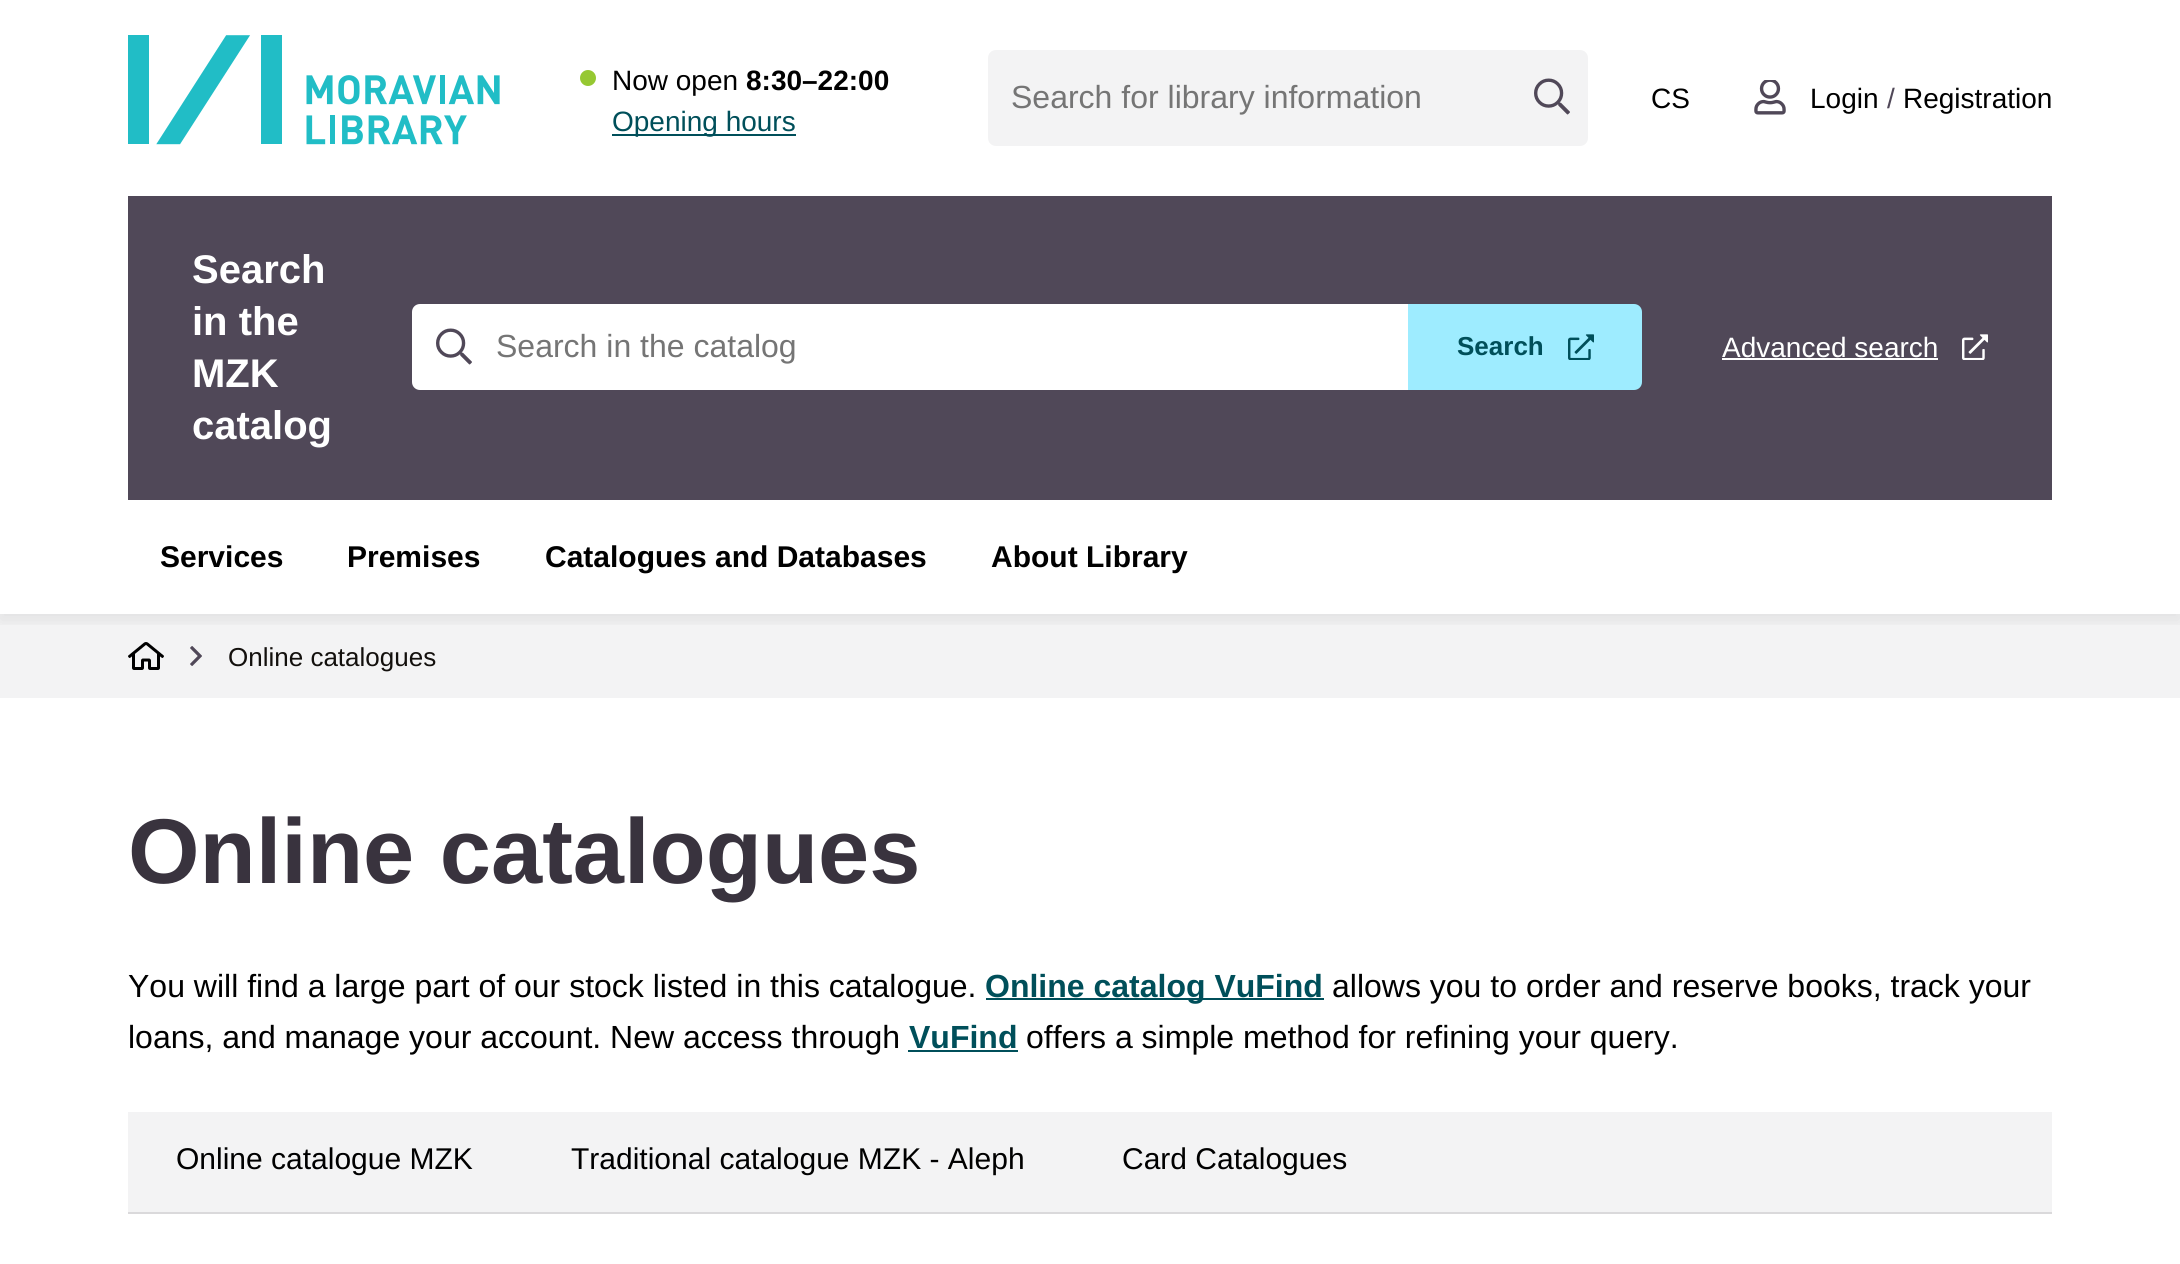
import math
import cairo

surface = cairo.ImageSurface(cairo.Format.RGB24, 2180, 1264)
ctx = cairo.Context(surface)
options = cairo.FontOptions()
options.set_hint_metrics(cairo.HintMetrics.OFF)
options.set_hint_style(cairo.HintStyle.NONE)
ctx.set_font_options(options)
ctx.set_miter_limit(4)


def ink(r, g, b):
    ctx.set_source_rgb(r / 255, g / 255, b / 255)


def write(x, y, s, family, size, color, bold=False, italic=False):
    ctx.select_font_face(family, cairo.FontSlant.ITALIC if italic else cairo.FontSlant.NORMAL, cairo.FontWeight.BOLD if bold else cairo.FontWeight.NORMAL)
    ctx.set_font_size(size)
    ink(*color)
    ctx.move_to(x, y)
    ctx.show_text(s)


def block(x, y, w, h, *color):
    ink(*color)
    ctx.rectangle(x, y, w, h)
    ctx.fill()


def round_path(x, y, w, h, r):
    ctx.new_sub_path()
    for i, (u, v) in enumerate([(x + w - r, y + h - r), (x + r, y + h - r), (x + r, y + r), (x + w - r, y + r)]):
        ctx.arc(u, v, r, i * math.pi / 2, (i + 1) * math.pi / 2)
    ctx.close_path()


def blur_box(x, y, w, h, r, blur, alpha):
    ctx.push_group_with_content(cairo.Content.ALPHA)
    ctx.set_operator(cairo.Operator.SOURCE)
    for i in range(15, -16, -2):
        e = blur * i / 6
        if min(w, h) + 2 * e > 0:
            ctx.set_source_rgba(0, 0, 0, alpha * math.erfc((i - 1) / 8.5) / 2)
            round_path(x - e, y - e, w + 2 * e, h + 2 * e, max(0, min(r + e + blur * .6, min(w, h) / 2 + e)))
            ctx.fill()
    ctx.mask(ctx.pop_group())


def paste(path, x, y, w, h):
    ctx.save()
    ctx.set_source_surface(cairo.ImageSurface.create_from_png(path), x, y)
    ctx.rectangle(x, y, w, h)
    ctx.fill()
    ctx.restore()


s1 = dict(family="Liberation Sans", size=28, color=(0, 0, 0))
s2 = dict(family="Liberation Sans", size=28, color=(0, 0, 0), bold=True)
s3 = dict(family="Liberation Sans", size=28, color=(0, 79, 90))
s4 = dict(family="Liberation Sans", size=32, color=(117, 117, 117))
s5 = dict(family="Liberation Sans", size=28, color=(80, 72, 88))
s6 = dict(family="Liberation Sans", size=40, color=(255, 255, 255), bold=True)
s7 = dict(family="Liberation Sans", size=26, color=(0, 79, 90), bold=True)
s8 = dict(family="Liberation Sans", size=28, color=(255, 255, 255))
s9 = dict(family="Liberation Sans", size=30, color=(0, 0, 0), bold=True)
s10 = dict(family="Liberation Sans", size=26, color=(19, 16, 13))
s11 = dict(family="Liberation Sans", size=92, color=(57, 51, 62), bold=True)
s12 = dict(family="Liberation Sans", size=32, color=(0, 0, 0))
s13 = dict(family="Liberation Sans", size=32, color=(0, 79, 90), bold=True)
s14 = dict(family="Liberation Sans", size=30, color=(0, 0, 0))

ink(255, 255, 255)
ctx.paint()
block(0, 614, 2180, 84, 243, 243, 244)
paste("pic8.png", 128, 642, 36, 28)
ctx.save()
ctx.rectangle(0, 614, 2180, 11)
ctx.clip()
ink(0, 0, 0)
blur_box(0, 6, 2180, 614, 0, 8, 0.08)
ctx.restore()
paste("pic1.png", 128, 35, 372, 110)
ink(150, 200, 50)
ctx.arc(588, 78, 8, 0, 2 * math.pi)
ctx.fill()
write(612, 90, "Now open", **s1)
write(746, 90, "8:30–22:00", **s2)
block(612, 134, 184, 2, 0, 79, 90)
write(612, 131, "Opening hours", **s3)
ink(243, 243, 244)
ctx.new_path()
ctx.move_to(996, 50)
ctx.line_to(1520, 50)
ctx.line_to(1520, 146)
ctx.line_to(996, 146)
ctx.curve_to(991.5, 146, 988, 142.5, 988, 138)
ctx.line_to(988, 58)
ctx.curve_to(988, 53.5, 991.5, 50, 996, 50)
ctx.close_path()
ctx.fill()
write(1011, 108, "Search for library information", **s4)
ink(243, 243, 244)
ctx.new_path()
ctx.move_to(1520, 50)
ctx.line_to(1580, 50)
ctx.curve_to(1584.5, 50, 1588, 53.5, 1588, 58)
ctx.line_to(1588, 138)
ctx.curve_to(1588, 142.5, 1584.5, 146, 1580, 146)
ctx.line_to(1520, 146)
ctx.close_path()
ctx.fill()
paste("pic2.png", 1534, 78, 36, 37)
write(1651, 108, "CS", **s1)
paste("pic3.png", 1754, 80, 32, 35)
write(1810, 108, "Login", **s1)
write(1887, 108, "/", **s5)
write(1903, 108, "Registration", **s1)
block(128, 196, 1924, 304, 80, 72, 88)
write(192, 283, "Search", **s6)
write(192, 335, "in the", **s6)
write(192, 387, "MZK", **s6)
write(192, 439, "catalog", **s6)
ctx.new_path()
ctx.move_to(420, 304)
ctx.line_to(1408, 304)
ctx.line_to(1408, 390)
ctx.line_to(420, 390)
ctx.curve_to(415.5, 390, 412, 386.5, 412, 382)
ctx.line_to(412, 312)
ctx.curve_to(412, 307.5, 415.5, 304, 420, 304)
ctx.close_path()
ctx.fill()
paste("pic4.png", 436, 328, 36, 37)
write(496, 357, "Search in the catalog", **s4)
ink(158, 236, 255)
ctx.new_path()
ctx.move_to(1408, 304)
ctx.line_to(1634, 304)
ctx.curve_to(1638.5, 304, 1642, 307.5, 1642, 312)
ctx.line_to(1642, 382)
ctx.curve_to(1642, 386.5, 1638.5, 390, 1634, 390)
ctx.line_to(1408, 390)
ctx.close_path()
ctx.fill()
paste("pic5.png", 1568, 334, 26, 26)
write(1457, 355, "Search", **s7)
paste("pic6.png", 1962, 334, 26, 26)
write(1722, 357, "Advanced search", **s8)
block(1722, 358, 216, 2, 255, 255, 255)
write(160, 567, "Services", **s9)
write(347, 567, "Premises", **s9)
write(545, 567, "Catalogues and Databases", **s9)
write(991, 567, "About Library", **s9)
paste("pic7.png", 190, 646, 12, 20)
write(228, 666, "Online catalogues", **s10)
write(128, 883, "Online catalogues", **s11)
write(128, 997, "You will find a large part of our stock listed in this catalogue.", **s12)
block(986, 998, 338, 2, 0, 79, 90)
write(985, 997, "Online catalog VuFind", **s13)
write(1332, 997, "allows you to order and reserve books, track your", **s12)
write(128, 1048, "loans, and manage your account. New access through", **s12)
write(909, 1048, "VuFind", **s13)
block(908, 1050, 110, 2, 0, 79, 90)
write(1026, 1048, "offers a simple method for refining your query.", **s12)
block(128, 1112, 1924, 100, 243, 243, 244)
block(128, 1212, 1924, 2, 218, 217, 219)
write(176, 1169, "Online catalogue MZK", **s14)
write(571, 1169, "Traditional catalogue MZK - Aleph", **s14)
write(1122, 1169, "Card Catalogues", **s14)
surface.write_to_png("screenshot.png")
